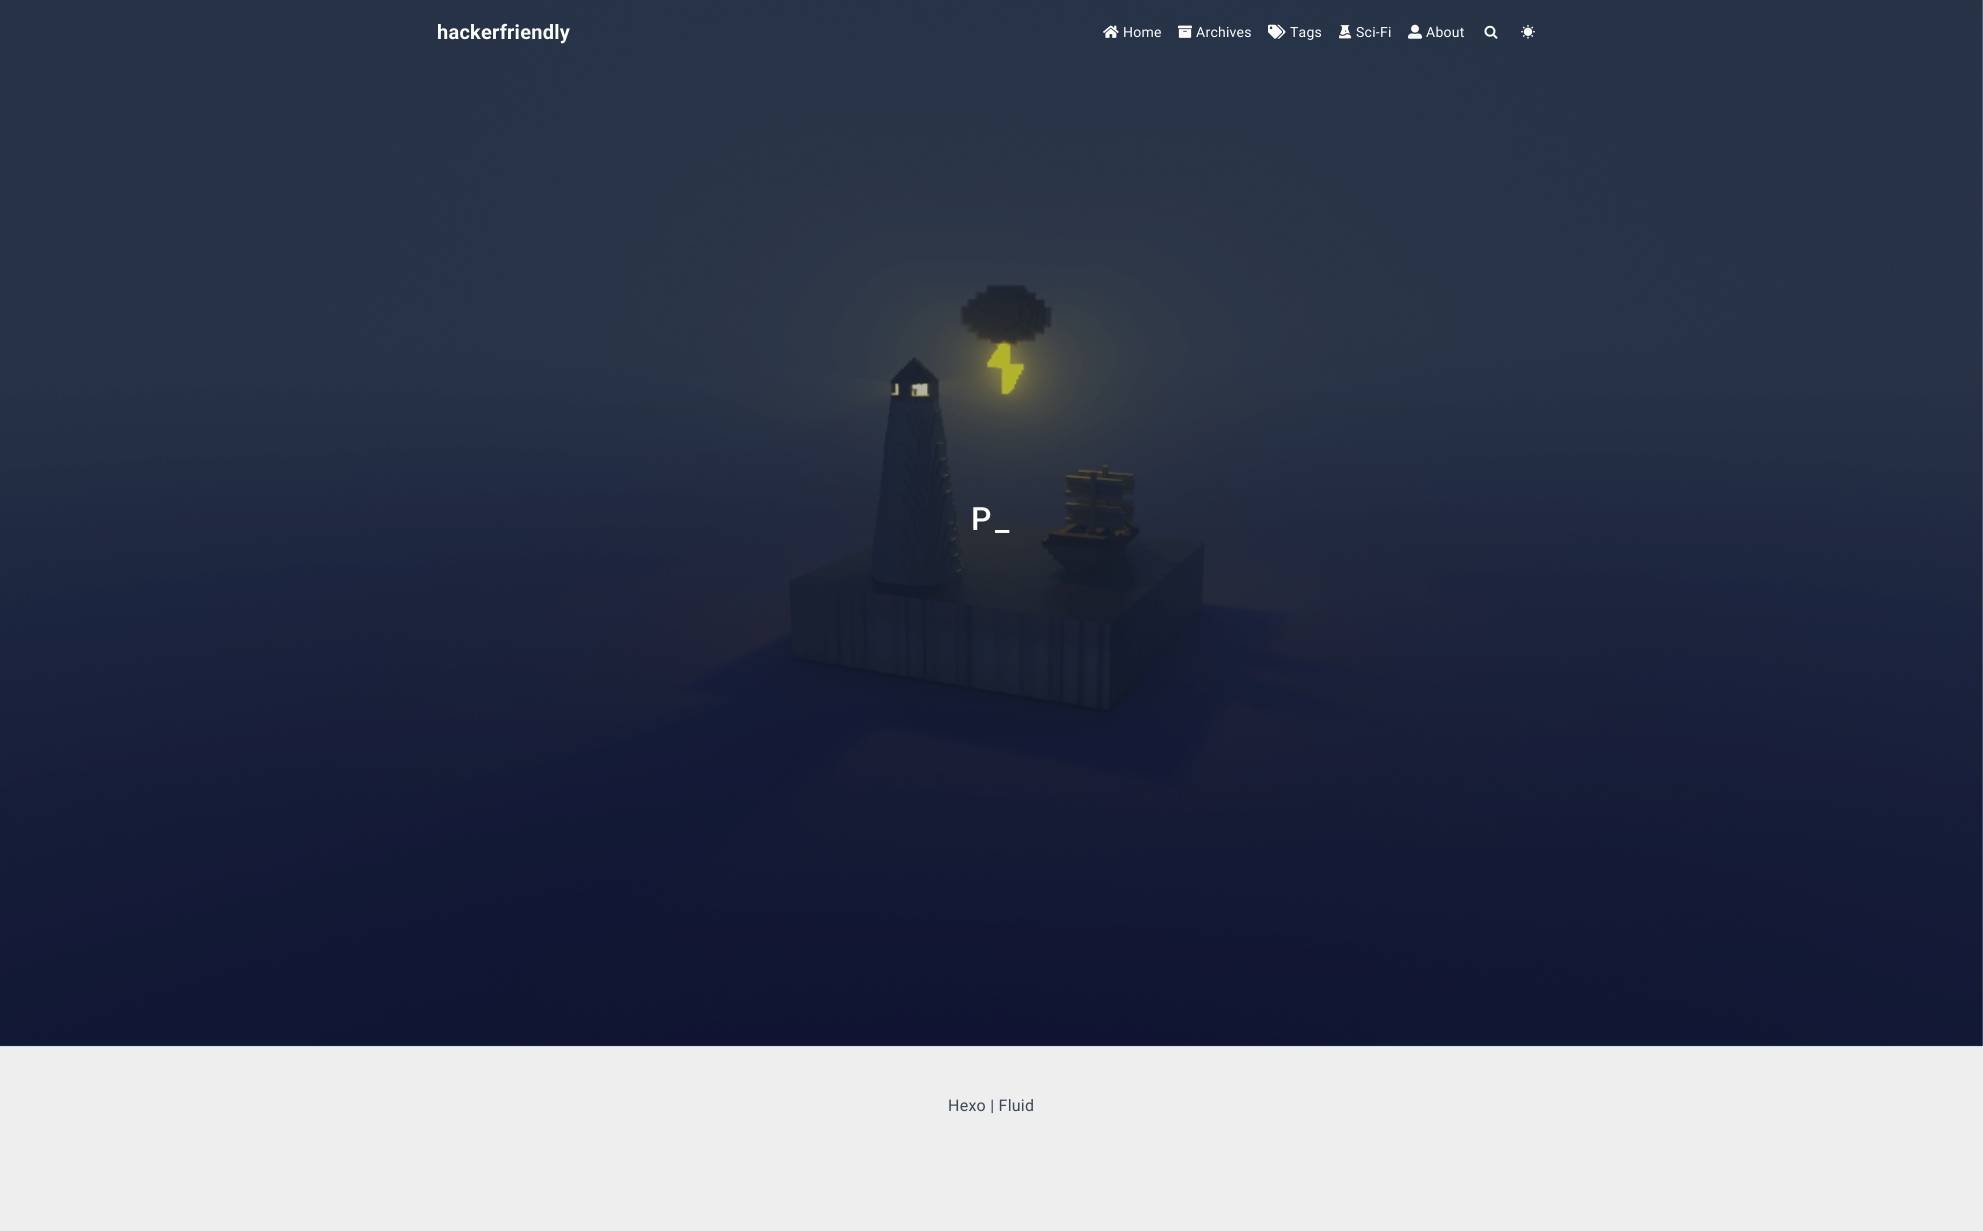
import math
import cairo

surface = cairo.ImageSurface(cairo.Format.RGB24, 1983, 1231)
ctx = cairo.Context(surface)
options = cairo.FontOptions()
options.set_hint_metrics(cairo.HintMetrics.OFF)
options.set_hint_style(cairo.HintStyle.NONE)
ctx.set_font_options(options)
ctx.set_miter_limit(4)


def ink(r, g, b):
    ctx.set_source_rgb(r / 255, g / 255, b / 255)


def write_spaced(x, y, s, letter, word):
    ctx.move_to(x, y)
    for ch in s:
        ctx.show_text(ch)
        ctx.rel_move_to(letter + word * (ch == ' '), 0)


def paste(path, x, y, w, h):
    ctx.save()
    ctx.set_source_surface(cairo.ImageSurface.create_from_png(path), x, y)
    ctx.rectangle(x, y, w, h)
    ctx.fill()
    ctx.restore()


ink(238, 238, 238)
ctx.paint()
paste("pic8.png", 0, 0, 1983, 1047)
ctx.select_font_face("Roboto", cairo.FontSlant.NORMAL, cairo.FontWeight.BOLD)
ctx.set_font_size(20)
ink(255, 255, 255)
write_spaced(437, 39, "hackerfriendly", 0.25, 0)
paste("pic1.png", 1103, 25, 16, 13)
ctx.select_font_face("Roboto")
ctx.set_font_size(14)
write_spaced(1123, 37, "Home", 0.25, 0)
paste("pic2.png", 1178, 25, 14, 13)
write_spaced(1196, 37, "Archives", 0.25, 0)
paste("pic3.png", 1268, 24, 18, 15)
write_spaced(1290, 37, "Tags", 0.25, 0)
paste("pic4.png", 1338, 25, 14, 14)
write_spaced(1356, 37, "Sci-Fi", 0.25, 0)
paste("pic5.png", 1408, 24, 14, 15)
write_spaced(1426, 37, "About", 0.25, 0)
paste("pic6.png", 1484, 25, 14, 14)
paste("pic7.png", 1521, 24, 14, 15)
ctx.select_font_face("Roboto Medium")
ctx.set_font_size(32)
write_spaced(971, 530, "P", 0.25, 0)
write_spaced(995, 530, "_", 0.25, 0)
ctx.select_font_face("Roboto")
ctx.set_font_size(16)
ink(60, 72, 88)
write_spaced(948, 1111, "Hexo | Fluid", 0.25, 0)
surface.write_to_png("screenshot.png")
